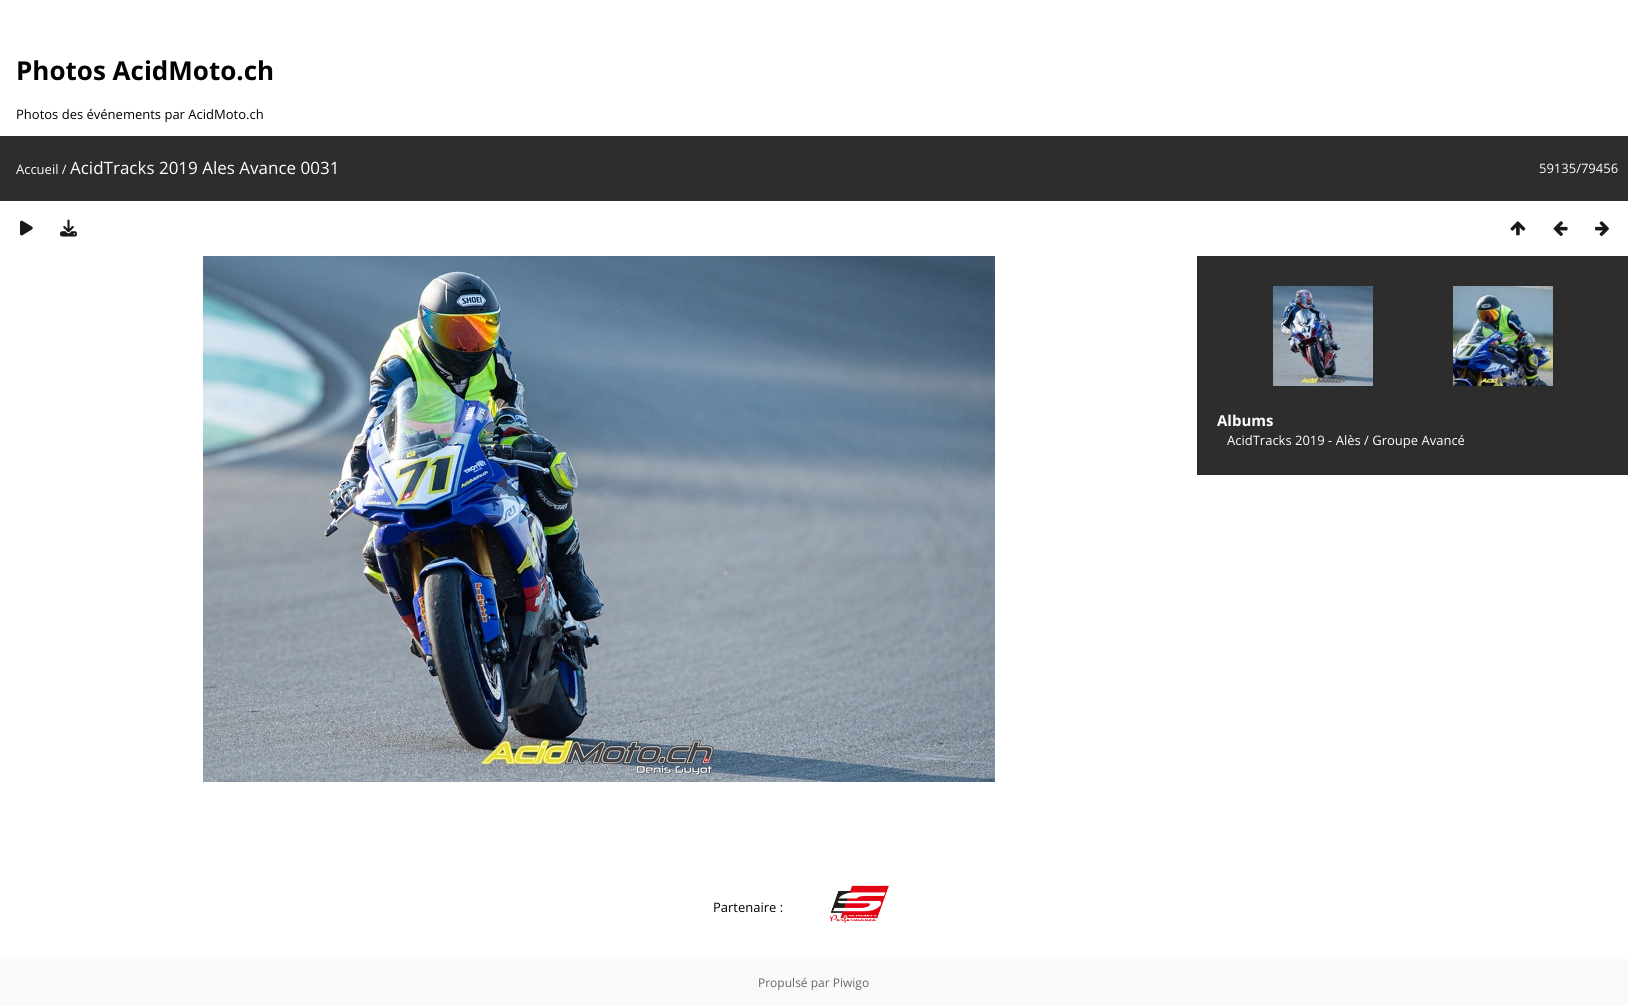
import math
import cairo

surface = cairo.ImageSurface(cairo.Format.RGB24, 1628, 1006)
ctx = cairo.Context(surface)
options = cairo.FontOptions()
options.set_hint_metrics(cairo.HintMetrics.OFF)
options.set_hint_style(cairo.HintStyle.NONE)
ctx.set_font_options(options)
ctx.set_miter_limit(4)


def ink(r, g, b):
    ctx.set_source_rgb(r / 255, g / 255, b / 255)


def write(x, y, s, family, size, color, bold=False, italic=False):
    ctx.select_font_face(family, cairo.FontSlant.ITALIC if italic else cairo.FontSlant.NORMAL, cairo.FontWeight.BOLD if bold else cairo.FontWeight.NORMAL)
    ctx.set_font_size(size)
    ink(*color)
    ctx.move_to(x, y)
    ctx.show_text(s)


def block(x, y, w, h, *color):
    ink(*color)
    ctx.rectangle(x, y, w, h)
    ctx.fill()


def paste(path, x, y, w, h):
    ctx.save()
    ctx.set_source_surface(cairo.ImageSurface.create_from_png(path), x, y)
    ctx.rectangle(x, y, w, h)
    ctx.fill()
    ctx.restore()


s1 = dict(family="Open Sans", size=26, color=(0, 0, 0), bold=True)
s2 = dict(family="Open Sans", size=13, color=(0, 0, 0))
s3 = dict(family="Open Sans", size=13, color=(255, 255, 255))
s4 = dict(family="Open Sans", size=17, color=(255, 255, 255))
s5 = dict(family="Open Sans", size=15, color=(255, 255, 255), bold=True)
s6 = dict(family="Open Sans", size=12, color=(102, 102, 102))

ink(255, 255, 255)
ctx.paint()
write(16, 80, "Photos AcidMoto.ch", **s1)
write(16, 119, "Photos des événements par AcidMoto.ch", **s2)
block(0, 136, 1628, 65, 45, 45, 45)
write(16, 174, "Accueil /", **s3)
write(70, 174, "AcidTracks 2019 Ales Avance 0031", **s4)
write(1539, 173, "59135/79456", **s3)
paste("pic1.png", 20, 220, 13, 16)
paste("pic2.png", 60, 219, 17, 18)
paste("pic3.png", 1510, 221, 16, 15)
paste("pic4.png", 1553, 221, 15, 15)
paste("pic5.png", 1595, 221, 14, 15)
paste("pic6.png", 203, 256, 792, 526)
block(1197, 256, 431, 219, 45, 45, 45)
paste("pic7.png", 1273, 286, 100, 100)
paste("pic8.png", 1453, 286, 100, 100)
write(1217, 426, "Albums", **s5)
write(1227, 445, "AcidTracks 2019 - Alès / Groupe Avancé", **s3)
write(713, 912, "Partenaire :", **s2)
paste("pic9.png", 829, 885, 60, 39)
block(0, 959, 1628, 47, 249, 249, 249)
write(758, 987, "Propulsé par Piwigo", **s6)
surface.write_to_png("screenshot.png")
